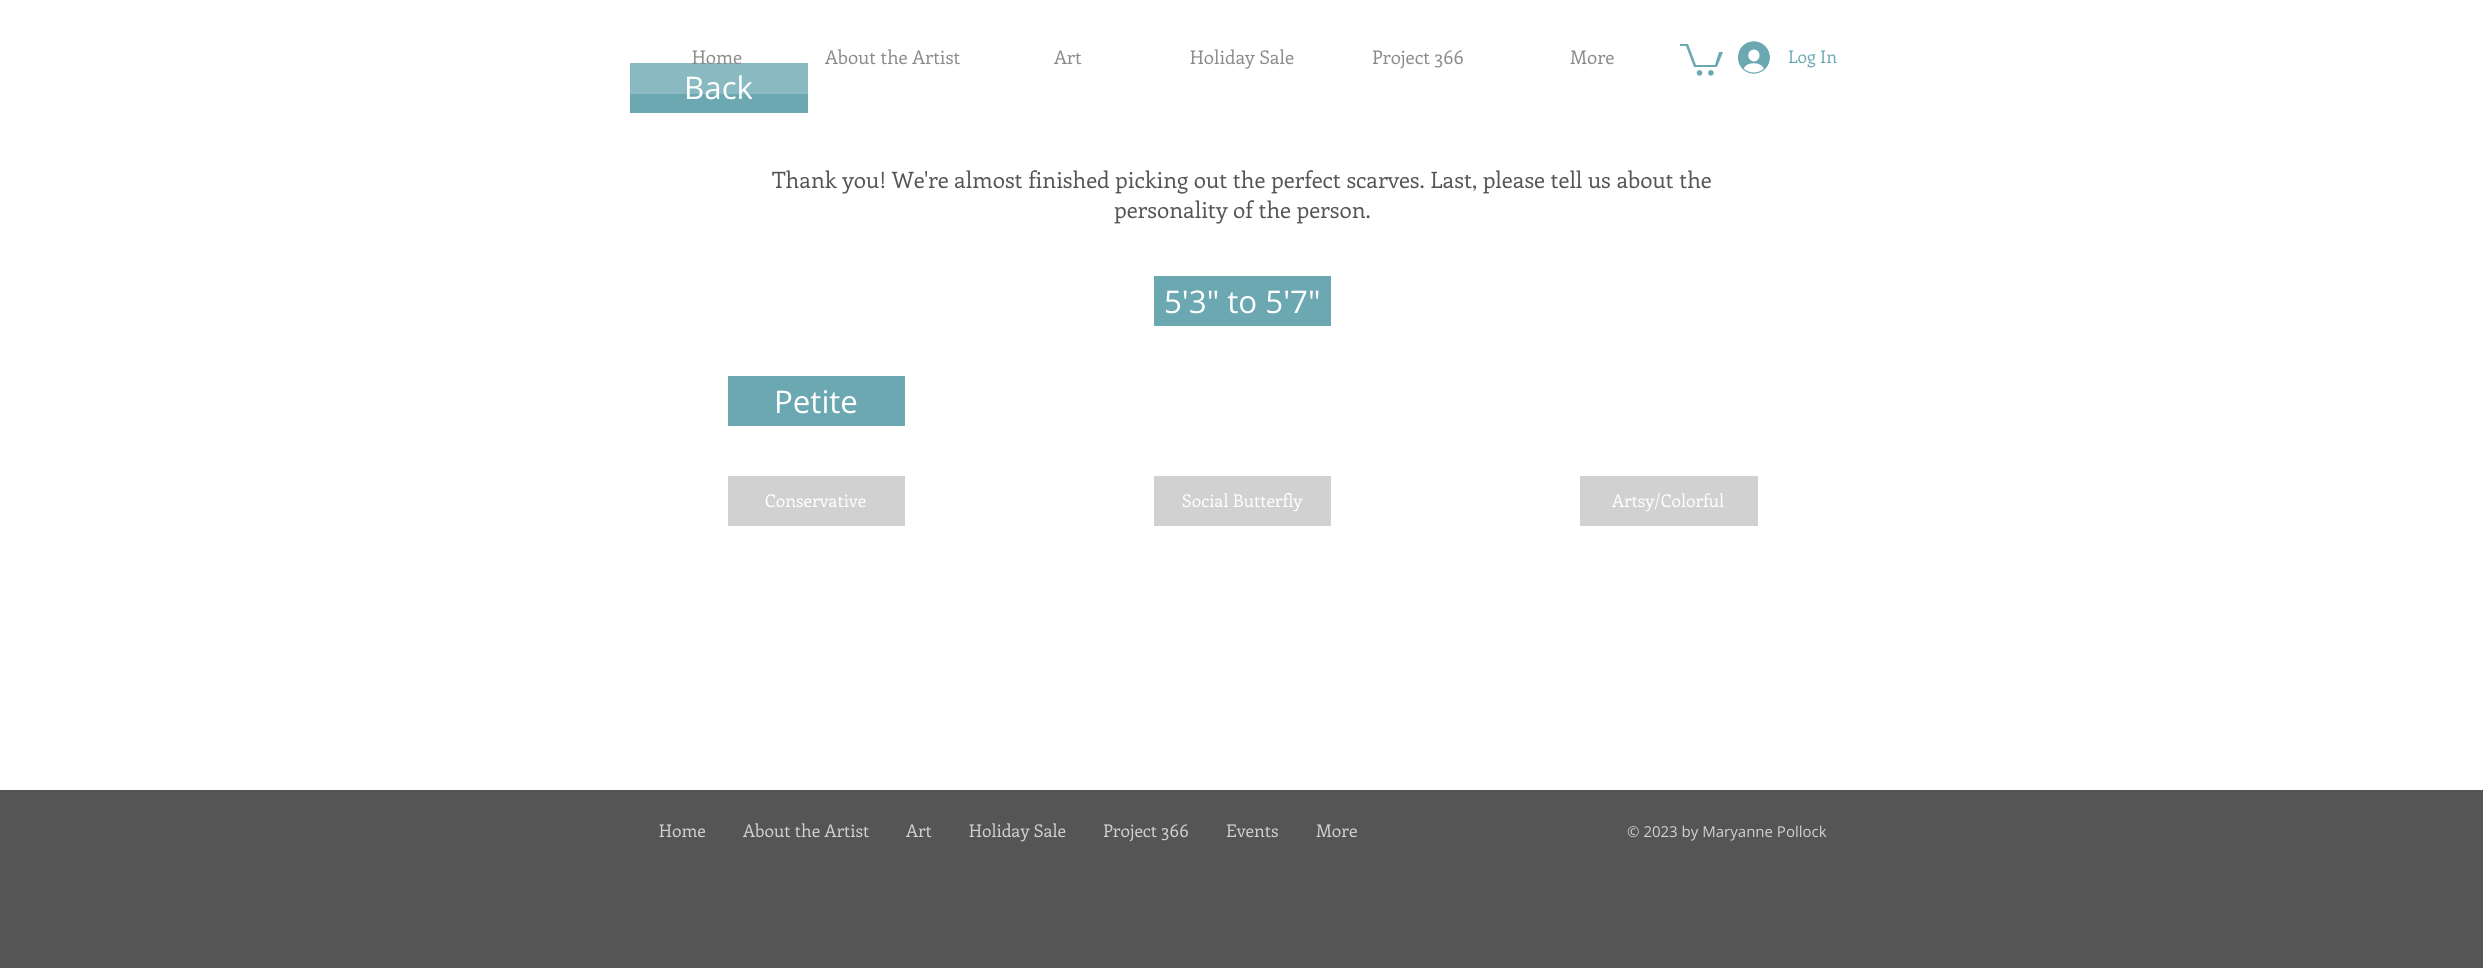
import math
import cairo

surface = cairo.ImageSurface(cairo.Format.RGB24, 2483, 968)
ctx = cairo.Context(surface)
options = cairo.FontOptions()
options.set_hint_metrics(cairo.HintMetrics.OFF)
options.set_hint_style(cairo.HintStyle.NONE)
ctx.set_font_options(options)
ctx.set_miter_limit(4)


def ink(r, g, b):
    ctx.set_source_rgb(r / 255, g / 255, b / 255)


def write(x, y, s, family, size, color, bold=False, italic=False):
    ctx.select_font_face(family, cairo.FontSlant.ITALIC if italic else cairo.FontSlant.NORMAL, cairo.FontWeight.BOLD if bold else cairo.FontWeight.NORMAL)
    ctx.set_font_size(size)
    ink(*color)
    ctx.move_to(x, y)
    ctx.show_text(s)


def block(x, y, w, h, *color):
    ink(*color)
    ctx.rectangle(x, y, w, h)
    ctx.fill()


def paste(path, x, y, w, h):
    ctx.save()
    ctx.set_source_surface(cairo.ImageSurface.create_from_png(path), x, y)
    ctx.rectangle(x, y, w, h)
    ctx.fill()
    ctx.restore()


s1 = dict(family="Open Sans", size=31.25, color=(255, 255, 255))
s2 = dict(family="Enriqueta", size=18.75, color=(139, 139, 139))
s3 = dict(family="Enriqueta", size=17.5, color=(107, 168, 178))
s4 = dict(family="Enriqueta", size=22.5, color=(85, 85, 85))
s5 = dict(family="Enriqueta", size=17.5, color=(255, 255, 255))
s6 = dict(family="Enriqueta", size=17.5, color=(209, 209, 209))
s7 = dict(family="Open Sans", size=15, color=(209, 209, 209))

ink(255, 255, 255)
ctx.paint()
block(630, 63, 178, 50, 107, 168, 178)
write(684, 99, "Back", **s1)
ctx.set_source_rgba(1, 1, 1, 0.2)
ctx.rectangle(630, 63, 178, 31)
ctx.fill()
write(692, 64, "Home", **s2)
write(825, 64, "About the Artist", **s2)
write(1054, 64, "Art", **s2)
write(1190, 64, "Holiday Sale", **s2)
write(1372, 64, "Project 366", **s2)
write(1570, 64, "More", **s2)
ink(107, 168, 178)
ctx.new_path()
ctx.move_to(1723, 52)
ctx.line_to(1717, 67)
ctx.line_to(1694, 67)
ctx.line_to(1686, 46)
ctx.line_to(1680, 46)
ctx.line_to(1680, 44)
ctx.line_to(1688, 44)
ctx.line_to(1696, 65)
ctx.line_to(1715, 65)
ctx.line_to(1719, 52)
ctx.fill()
ctx.arc(1710.9, 72.9, 2.8, 0, 2 * math.pi)
ctx.fill()
ctx.arc(1699.5, 72.9, 2.8, 0, 2 * math.pi)
ctx.fill()
paste("pic1.png", 1738, 41, 32, 33)
write(1788, 63, "Log In", **s3)
write(772, 188, "Thank you! We're almost finished picking out the perfect scarves. Last, please tell us about the", **s4)
write(1114, 218, "personality of the person.", **s4)
block(1154, 276, 177, 50, 107, 168, 178)
write(1164, 313, "5'3\" to 5'7\"", **s1)
block(728, 376, 177, 50, 107, 168, 178)
write(774, 413, "Petite", **s1)
block(728, 476, 177, 50, 209, 209, 209)
write(765, 507, "Conservative", **s5)
block(1154, 476, 177, 50, 209, 209, 209)
write(1182, 507, "Social Butterfly", **s5)
block(1580, 476, 178, 50, 209, 209, 209)
write(1612, 507, "Artsy/Colorful", **s5)
block(0, 790, 2483, 178, 85, 85, 85)
write(659, 837, "Home", **s6)
write(743, 837, "About the Artist", **s6)
write(906, 837, "Art", **s6)
write(969, 837, "Holiday Sale", **s6)
write(1103, 837, "Project 366", **s6)
write(1226, 837, "Events", **s6)
write(1316, 837, "More", **s6)
write(1627, 837, "© 2023 by Maryanne Pollock", **s7)
surface.write_to_png("screenshot.png")
